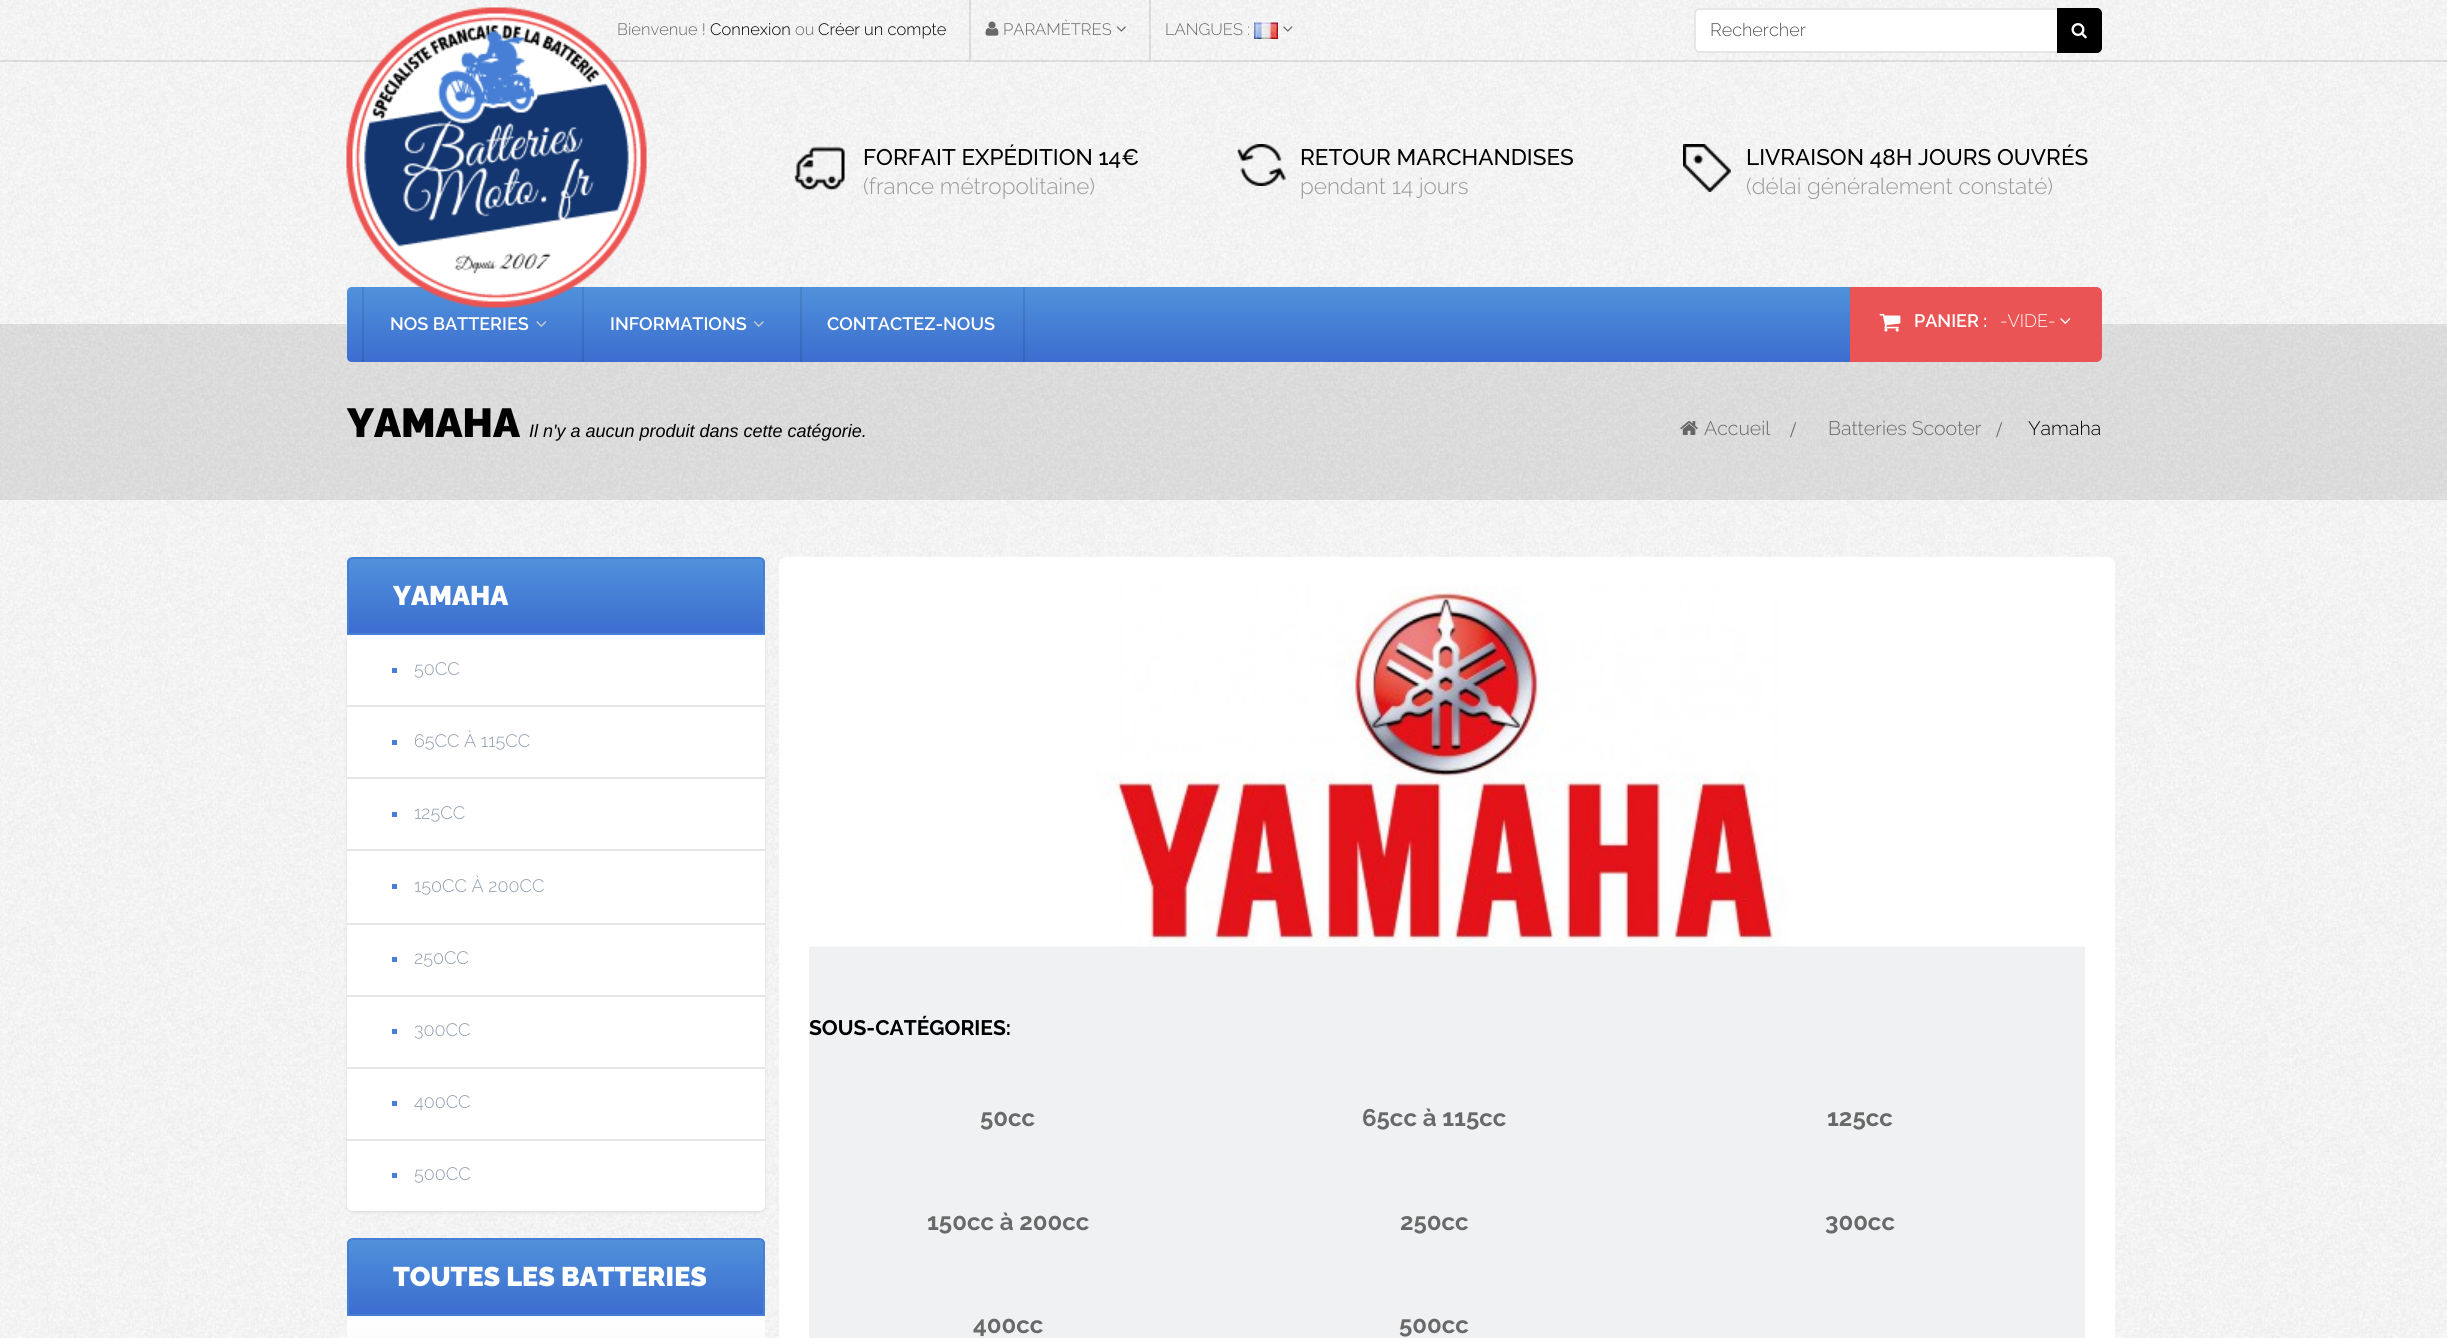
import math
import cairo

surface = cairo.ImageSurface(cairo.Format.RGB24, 2447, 1338)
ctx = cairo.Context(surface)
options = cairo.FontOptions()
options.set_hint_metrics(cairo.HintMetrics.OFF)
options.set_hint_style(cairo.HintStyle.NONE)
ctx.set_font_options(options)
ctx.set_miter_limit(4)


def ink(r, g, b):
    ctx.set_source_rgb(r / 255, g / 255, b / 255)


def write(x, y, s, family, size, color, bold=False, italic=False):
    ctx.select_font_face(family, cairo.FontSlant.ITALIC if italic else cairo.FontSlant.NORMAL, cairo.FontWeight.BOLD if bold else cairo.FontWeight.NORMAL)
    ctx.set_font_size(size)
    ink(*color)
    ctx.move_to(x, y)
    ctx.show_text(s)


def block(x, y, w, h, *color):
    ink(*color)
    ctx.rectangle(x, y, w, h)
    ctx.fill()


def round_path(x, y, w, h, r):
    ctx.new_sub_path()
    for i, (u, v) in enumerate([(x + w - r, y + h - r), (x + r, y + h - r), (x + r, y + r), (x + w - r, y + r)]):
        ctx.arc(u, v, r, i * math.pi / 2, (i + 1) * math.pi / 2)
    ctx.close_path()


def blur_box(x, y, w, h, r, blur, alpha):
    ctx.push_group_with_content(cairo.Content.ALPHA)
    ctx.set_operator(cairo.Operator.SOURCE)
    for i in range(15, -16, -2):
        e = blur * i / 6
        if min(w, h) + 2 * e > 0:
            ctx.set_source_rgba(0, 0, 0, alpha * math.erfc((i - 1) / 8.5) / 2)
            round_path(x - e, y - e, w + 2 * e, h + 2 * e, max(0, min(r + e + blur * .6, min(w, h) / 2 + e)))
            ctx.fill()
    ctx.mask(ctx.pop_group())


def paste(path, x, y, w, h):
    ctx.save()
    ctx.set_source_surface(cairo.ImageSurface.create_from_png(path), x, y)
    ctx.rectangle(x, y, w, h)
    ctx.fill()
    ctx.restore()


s1 = dict(family="Raleway Light", size=16.5, color=(105, 105, 105))
s2 = dict(family="Raleway Light", size=16.5, color=(0, 0, 0))
s3 = dict(family="Raleway Light", size=18, color=(85, 85, 85))
s4 = dict(family="Raleway Medium", size=22.5, color=(0, 0, 0))
s5 = dict(family="Raleway Light", size=22.5, color=(153, 153, 153))
s6 = dict(family="Raleway SemiBold", size=18, color=(255, 255, 255))
s7 = dict(family="Raleway Light", size=18, color=(255, 255, 255))
s8 = dict(family="Raleway Black", size=40.5, color=(0, 0, 0))
s9 = dict(family="Liberation Sans", size=18, color=(0, 0, 0), italic=True)
s10 = dict(family="Raleway Light", size=19.5, color=(105, 105, 105))
s11 = dict(family="Liberation Serif", size=22.5, color=(105, 105, 105))
s12 = dict(family="Raleway Light", size=19.5, color=(0, 0, 0))
s13 = dict(family="Raleway Black", size=27, color=(255, 255, 255))
s14 = dict(family="Raleway Light", size=18, color=(144, 156, 173))
s15 = dict(family="Raleway", size=21, color=(0, 0, 0), bold=True)
s16 = dict(family="Raleway", size=24, color=(105, 105, 105), bold=True)

ink(255, 255, 255)
ctx.paint()
paste("pic1.png", 0, 0, 2447, 1338)
ctx.set_source_rgba(0, 0, 0, 0.1)
ctx.rectangle(0, 60, 2447, 2)
ctx.fill()
write(617, 35, "Bienvenue !", **s1)
write(710, 35, "Connexion", **s2)
write(795, 35, "ou", **s1)
write(818, 35, "Créer un compte", **s2)
ctx.set_source_rgba(0, 0, 0, 0.1)
ctx.rectangle(969, 0, 2, 60)
ctx.fill()
paste("pic2.png", 985, 21, 14, 15)
write(1003, 35, "PARAMÈTRES", **s1)
paste("pic3.png", 1116, 26, 10, 6)
ctx.set_source_rgba(0, 0, 0, 0.1)
ctx.rectangle(1149, 0, 2, 60)
ctx.fill()
write(1165, 35, "LANGUES :", **s1)
paste("pic4.png", 1254, 22, 24, 17)
paste("pic5.png", 1283, 26, 10, 6)
ink(255, 255, 255)
ctx.new_path()
ctx.move_to(1699, 8)
ctx.line_to(2061, 8)
ctx.line_to(2061, 53)
ctx.line_to(1699, 53)
ctx.curve_to(1696, 53, 1694, 51, 1694, 48)
ctx.line_to(1694, 13)
ctx.curve_to(1694, 10, 1696, 8, 1699, 8)
ctx.close_path()
ctx.fill()
ctx.new_path()
ctx.move_to(1699, 9)
ctx.line_to(2060, 9)
ctx.line_to(2060, 52)
ctx.line_to(1699, 52)
ctx.curve_to(1697, 52, 1695, 50, 1695, 48)
ctx.line_to(1695, 13)
ctx.curve_to(1695, 11, 1697, 9, 1699, 9)
ctx.close_path()
ctx.set_source_rgba(0, 0, 0, 0.1)
ctx.stroke()
write(1710, 36, "Rechercher", **s3)
ink(0, 0, 0)
ctx.new_path()
ctx.move_to(2058, 9)
ctx.line_to(2097, 9)
ctx.curve_to(2099, 9, 2101, 11, 2101, 13)
ctx.line_to(2101, 48)
ctx.curve_to(2101, 50, 2099, 52, 2097, 52)
ctx.line_to(2058, 52)
ctx.close_path()
ctx.fill_preserve()
ctx.stroke()
paste("pic6.png", 2071, 23, 16, 16)
ctx.set_source_rgba(0, 0, 0, 0.1)
ctx.rectangle(0, 324, 2447, 176)
ctx.fill()
gradient = cairo.LinearGradient(1224, 286, 1224, 362)
gradient.add_color_stop_rgba(0, 0.314, 0.573, 0.859, 1)
gradient.add_color_stop_rgba(1, 0.235, 0.427, 0.812, 1)
ctx.set_source(gradient)
ctx.new_path()
ctx.move_to(352, 287)
ctx.line_to(2094, 287)
ctx.curve_to(2098.5, 287, 2102, 290.5, 2102, 295)
ctx.line_to(2102, 354)
ctx.curve_to(2102, 358.5, 2098.5, 362, 2094, 362)
ctx.line_to(352, 362)
ctx.curve_to(349, 362, 347, 360, 347, 357)
ctx.line_to(347, 292)
ctx.curve_to(347, 289, 349, 287, 352, 287)
ctx.close_path()
ctx.fill()
ctx.set_source_rgba(0, 0, 0, 0.1)
ctx.rectangle(362, 287, 2, 75)
ctx.fill()
ctx.rectangle(582, 287, 2, 75)
ctx.fill()
paste("pic7.png", 346, 7, 301, 301)
paste("pic8.png", 794, 146, 51, 45)
write(863, 165, "FORFAIT EXPÉDITION 14€", **s4)
write(863, 194, "(france métropolitaine)", **s5)
paste("pic9.png", 1237, 144, 49, 42)
write(1300, 165, "RETOUR MARCHANDISES", **s4)
write(1300, 194, "pendant 14 jours", **s5)
paste("pic10.png", 1683, 144, 48, 48)
write(1746, 165, "LIVRAISON 48H JOURS OUVRÉS", **s4)
write(1746, 194, "(délai généralement constaté)", **s5)
write(390, 330, "NOS BATTERIES", **s6)
paste("pic11.png", 536, 321, 11, 6)
ctx.set_source_rgba(0, 0, 0, 0.1)
ctx.rectangle(800, 287, 2, 75)
ctx.fill()
write(610, 330, "INFORMATIONS", **s6)
paste("pic12.png", 753, 321, 11, 6)
ctx.set_source_rgba(0, 0, 0, 0.1)
ctx.rectangle(1023, 287, 2, 75)
ctx.fill()
write(827, 330, "CONTACTEZ-NOUS", **s6)
ink(235, 84, 84)
ctx.new_path()
ctx.move_to(1850, 287)
ctx.line_to(2096, 287)
ctx.curve_to(2099.5, 287, 2102, 289.5, 2102, 293)
ctx.line_to(2102, 356)
ctx.curve_to(2102, 359.5, 2099.5, 362, 2096, 362)
ctx.line_to(1850, 362)
ctx.close_path()
ctx.fill()
paste("pic13.png", 1879, 313, 22, 19)
write(1914, 327, "PANIER :", **s6)
write(2000, 327, "-VIDE-", **s7)
paste("pic14.png", 2060, 318, 11, 6)
write(347, 437, "YAMAHA", **s8)
write(529, 437, "Il n'y a aucun produit dans cette catégorie.", **s9)
paste("pic15.png", 1680, 421, 18, 14)
write(1704, 435, "Accueil", **s10)
write(1790, 437, "/", **s11)
write(1828, 435, "Batteries Scooter", **s10)
write(1996, 437, "/", **s11)
write(2028, 435, "Yamaha", **s12)
ink(218, 218, 218)
blur_box(347, 636, 418, 576, 6, 1.5, 1)
ctx.save()
ctx.new_path()
ctx.move_to(353, 557)
ctx.line_to(759, 557)
ctx.curve_to(762.5, 557, 765, 559.5, 765, 563)
ctx.line_to(765, 635)
ctx.line_to(347, 635)
ctx.line_to(347, 563)
ctx.curve_to(347, 559.5, 349.5, 557, 353, 557)
ctx.close_path()
ctx.clip()
gradient = cairo.LinearGradient(556, 558, 556, 633)
gradient.add_color_stop_rgba(0, 0.314, 0.573, 0.859, 1)
gradient.add_color_stop_rgba(1, 0.235, 0.427, 0.812, 1)
ctx.set_source(gradient)
ctx.rectangle(347, 558, 418, 75)
ctx.fill()
ctx.restore()
ctx.new_path()
ctx.move_to(353, 558)
ctx.line_to(759, 558)
ctx.curve_to(762, 558, 764, 560, 764, 563)
ctx.line_to(764, 634)
ctx.line_to(348, 634)
ctx.line_to(348, 563)
ctx.curve_to(348, 560, 350, 558, 353, 558)
ctx.close_path()
ink(70, 127, 213)
ctx.stroke()
write(393, 605, "YAMAHA", **s13)
ctx.new_path()
ctx.move_to(347, 635)
ctx.line_to(765, 635)
ctx.line_to(765, 1205)
ctx.curve_to(765, 1208.5, 762.5, 1211, 759, 1211)
ctx.line_to(353, 1211)
ctx.curve_to(349.5, 1211, 347, 1208.5, 347, 1205)
ctx.close_path()
ctx.fill()
block(392, 668, 5, 5, 70, 127, 213)
write(414, 675, "50CC", **s14)
block(347, 705, 418, 2, 230, 230, 230)
block(392, 740, 5, 5, 70, 127, 213)
write(414, 747, "65CC À 115CC", **s14)
block(347, 777, 418, 2, 230, 230, 230)
block(392, 812, 5, 5, 70, 127, 213)
write(414, 819, "125CC", **s14)
block(347, 849, 418, 2, 230, 230, 230)
block(392, 884, 5, 5, 70, 127, 213)
write(414, 892, "150CC À 200CC", **s14)
block(347, 923, 418, 2, 230, 230, 230)
block(392, 957, 5, 5, 70, 127, 213)
write(414, 964, "250CC", **s14)
block(347, 995, 418, 2, 230, 230, 230)
block(392, 1029, 5, 5, 70, 127, 213)
write(414, 1036, "300CC", **s14)
block(347, 1067, 418, 2, 230, 230, 230)
block(392, 1101, 5, 5, 70, 127, 213)
write(414, 1108, "400CC", **s14)
block(347, 1139, 418, 2, 230, 230, 230)
block(392, 1173, 5, 5, 70, 127, 213)
write(414, 1180, "500CC", **s14)
ctx.save()
ctx.new_path()
ctx.move_to(353, 1238)
ctx.line_to(759, 1238)
ctx.curve_to(762.5, 1238, 765, 1240.5, 765, 1244)
ctx.line_to(765, 1316)
ctx.line_to(347, 1316)
ctx.line_to(347, 1244)
ctx.curve_to(347, 1240.5, 349.5, 1238, 353, 1238)
ctx.close_path()
ctx.clip()
gradient = cairo.LinearGradient(556, 1239, 556, 1314)
gradient.add_color_stop_rgba(0, 0.314, 0.573, 0.859, 1)
gradient.add_color_stop_rgba(1, 0.235, 0.427, 0.812, 1)
ctx.set_source(gradient)
ctx.rectangle(347, 1239, 418, 75)
ctx.fill()
ctx.restore()
ctx.new_path()
ctx.move_to(353, 1239)
ctx.line_to(759, 1239)
ctx.curve_to(762, 1239, 764, 1241, 764, 1244)
ctx.line_to(764, 1315)
ctx.line_to(348, 1315)
ctx.line_to(348, 1244)
ctx.curve_to(348, 1241, 350, 1239, 353, 1239)
ctx.close_path()
ink(70, 127, 213)
ctx.stroke()
write(393, 1286, "TOUTES LES BATTERIES", **s13)
gradient = cairo.LinearGradient(556, 1316, 556, 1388)
gradient.add_color_stop_rgba(0, 1, 1, 1, 1)
gradient.add_color_stop_rgba(1, 0.965, 0.965, 0.965, 1)
ctx.set_source(gradient)
ctx.rectangle(347, 1316, 418, 22)
ctx.fill()
ink(255, 255, 255)
round_path(779, 557, 1336, 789, 8)
ctx.fill()
block(809, 946, 1276, 392, 239, 241, 242)
paste("pic16.png", 809, 586, 1276, 361)
write(809, 1035, "SOUS-CATÉGORIES:", **s15)
write(980, 1126, "50cc", **s16)
write(1362, 1126, "65cc à 115cc", **s16)
write(1827, 1126, "125cc", **s16)
write(927, 1230, "150cc à 200cc", **s16)
write(1400, 1230, "250cc", **s16)
write(1825, 1230, "300cc", **s16)
write(973, 1333, "400cc", **s16)
write(1399, 1333, "500cc", **s16)
surface.write_to_png("screenshot.png")
